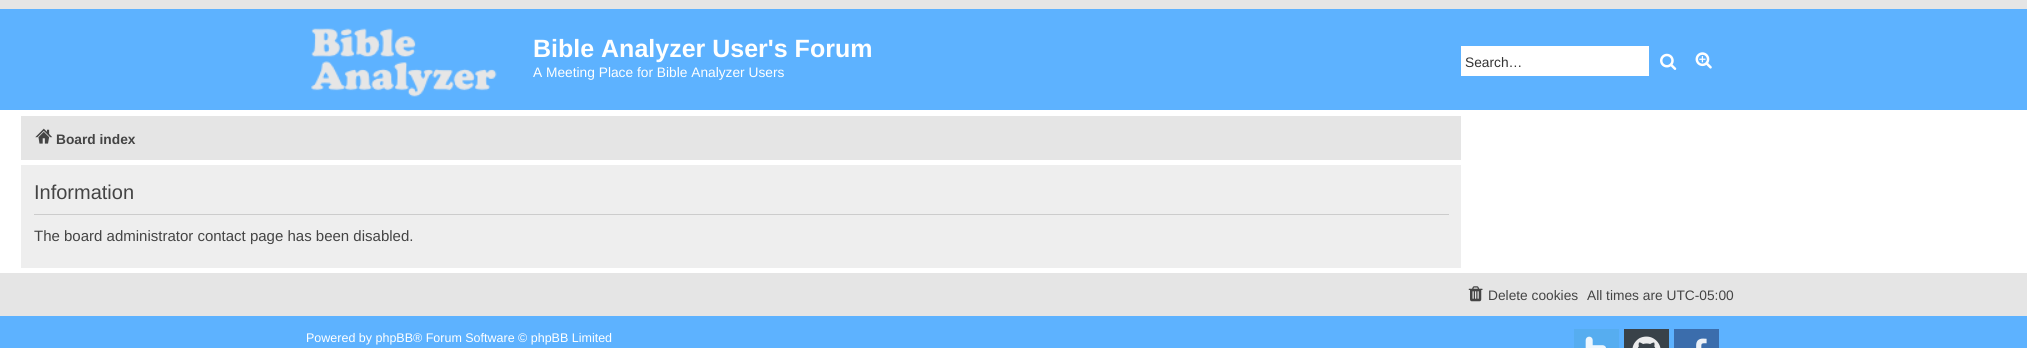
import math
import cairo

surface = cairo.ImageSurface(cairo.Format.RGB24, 2027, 348)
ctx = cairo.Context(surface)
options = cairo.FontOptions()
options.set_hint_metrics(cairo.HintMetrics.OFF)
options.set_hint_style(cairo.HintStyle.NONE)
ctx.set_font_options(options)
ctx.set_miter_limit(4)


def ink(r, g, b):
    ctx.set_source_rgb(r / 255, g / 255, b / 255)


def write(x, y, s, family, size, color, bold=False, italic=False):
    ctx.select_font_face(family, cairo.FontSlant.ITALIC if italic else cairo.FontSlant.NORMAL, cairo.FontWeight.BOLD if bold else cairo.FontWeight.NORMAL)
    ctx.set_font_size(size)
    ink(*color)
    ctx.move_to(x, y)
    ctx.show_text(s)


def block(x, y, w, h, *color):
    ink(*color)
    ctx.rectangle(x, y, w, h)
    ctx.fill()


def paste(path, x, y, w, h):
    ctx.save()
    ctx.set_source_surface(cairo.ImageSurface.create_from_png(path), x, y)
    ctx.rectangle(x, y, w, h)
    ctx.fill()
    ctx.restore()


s1 = dict(family="Liberation Sans", size=25, color=(255, 255, 255), bold=True)
s2 = dict(family="Liberation Sans", size=13.75, color=(255, 255, 255))
s3 = dict(family="Liberation Sans", size=13.75, color=(51, 51, 51))
s4 = dict(family="Liberation Sans", size=13.75, color=(68, 68, 68), bold=True)
s5 = dict(family="Liberation Sans", size=20, color=(68, 68, 68))
s6 = dict(family="Liberation Sans", size=15, color=(68, 68, 68))
s7 = dict(family="Liberation Sans", size=13.75, color=(68, 68, 68))
s8 = dict(family="Liberation Sans", size=12.5, color=(255, 255, 255))

ink(255, 255, 255)
ctx.paint()
block(0, 0, 2027, 9, 229, 229, 229)
block(0, 9, 2027, 101, 93, 178, 255)
paste("pic1.png", 311, 28, 186, 69)
write(533, 57, "Bible Analyzer User's Forum", **s1)
write(533, 77, "A Meeting Place for Bible Analyzer Users", **s2)
block(1461, 46, 188, 30, 255, 255, 255)
write(1465, 67, "Search…", **s3)
paste("pic2.png", 1660, 53, 17, 17)
paste("pic3.png", 1695, 52, 17, 17)
block(21, 116, 1440, 44, 229, 229, 229)
paste("pic4.png", 35, 128, 18, 16)
write(56, 144, "Board index", **s4)
block(21, 165, 1440, 103, 238, 238, 238)
block(34, 214, 1415, 1, 204, 204, 204)
write(34, 199, "Information", **s5)
write(34, 241, "The board administrator contact page has been disabled.", **s6)
block(0, 273, 2027, 43, 229, 229, 229)
paste("pic5.png", 1468, 286, 15, 16)
write(1488, 300, "Delete cookies", **s7)
write(1587, 300, "All times are UTC-05:00", **s7)
block(0, 316, 2027, 32, 93, 178, 255)
write(306, 342, "Powered by phpBB® Forum Software © phpBB Limited", **s8)
block(1574, 329, 45, 19, 86, 173, 240)
paste("pic6.png", 1585, 336, 21, 12)
block(1624, 329, 45, 19, 57, 66, 73)
paste("pic7.png", 1632, 336, 29, 12)
block(1674, 329, 45, 19, 59, 109, 172)
paste("pic8.png", 1696, 338, 11, 10)
surface.write_to_png("screenshot.png")
